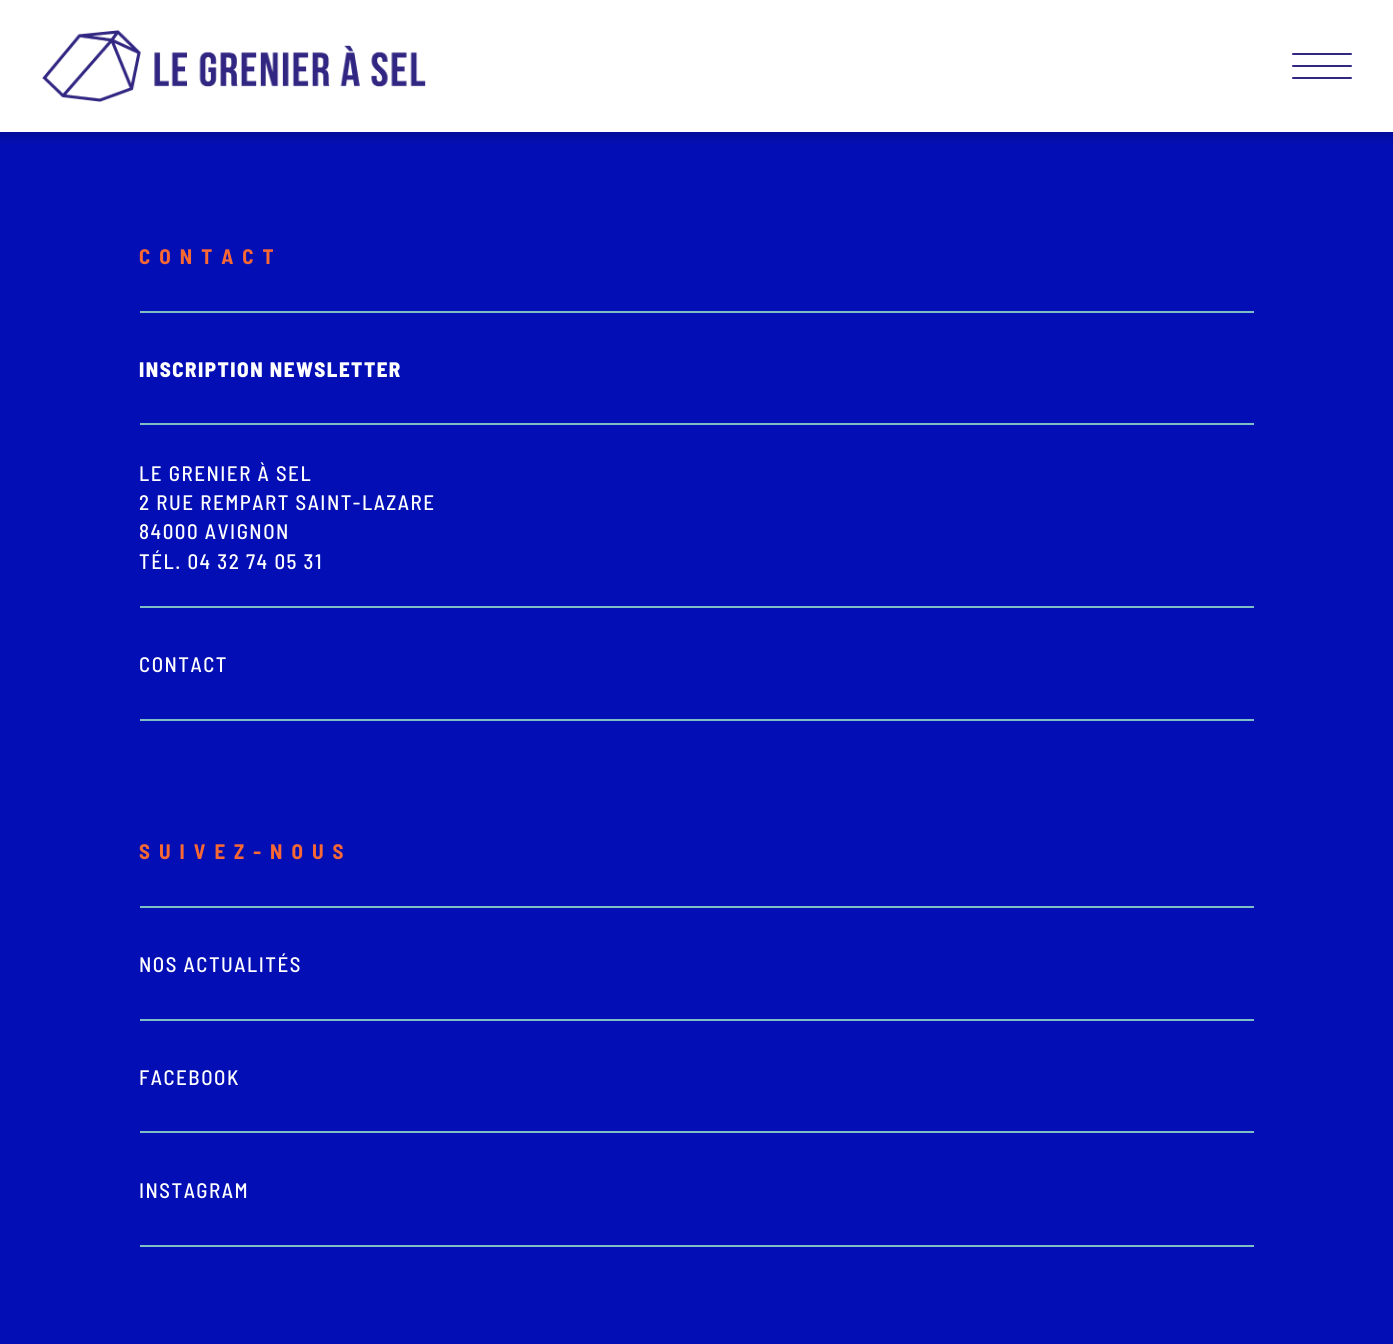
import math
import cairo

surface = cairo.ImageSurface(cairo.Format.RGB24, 1393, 1344)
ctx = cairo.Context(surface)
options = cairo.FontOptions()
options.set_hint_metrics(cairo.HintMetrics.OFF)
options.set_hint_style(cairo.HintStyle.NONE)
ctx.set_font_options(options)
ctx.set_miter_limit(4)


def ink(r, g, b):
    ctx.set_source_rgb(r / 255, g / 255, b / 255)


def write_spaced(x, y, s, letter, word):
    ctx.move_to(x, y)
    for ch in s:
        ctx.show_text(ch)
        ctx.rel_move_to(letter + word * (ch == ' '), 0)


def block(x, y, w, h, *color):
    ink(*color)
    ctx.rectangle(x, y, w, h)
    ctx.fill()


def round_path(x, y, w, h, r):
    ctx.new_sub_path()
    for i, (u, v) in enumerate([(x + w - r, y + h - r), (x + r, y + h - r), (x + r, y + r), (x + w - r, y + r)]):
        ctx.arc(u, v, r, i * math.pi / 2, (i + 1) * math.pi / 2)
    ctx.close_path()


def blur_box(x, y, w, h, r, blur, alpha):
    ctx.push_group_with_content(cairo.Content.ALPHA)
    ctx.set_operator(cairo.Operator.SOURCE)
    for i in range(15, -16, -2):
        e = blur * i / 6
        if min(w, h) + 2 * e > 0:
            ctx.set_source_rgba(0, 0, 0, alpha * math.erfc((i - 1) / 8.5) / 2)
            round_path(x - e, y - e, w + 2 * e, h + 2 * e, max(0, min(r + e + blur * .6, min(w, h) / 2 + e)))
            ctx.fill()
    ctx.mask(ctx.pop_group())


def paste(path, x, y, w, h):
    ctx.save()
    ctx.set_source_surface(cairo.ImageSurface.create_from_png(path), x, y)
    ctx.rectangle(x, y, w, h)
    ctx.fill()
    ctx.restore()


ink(255, 255, 255)
ctx.paint()
block(0, 132, 1393, 1212, 3, 15, 181)
ctx.save()
ctx.rectangle(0, 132, 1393, 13)
ctx.clip()
ink(0, 0, 0)
blur_box(0, 3, 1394, 132, 0, 7.5, 0.23)
ctx.restore()
ink(49, 39, 130)
round_path(1292, 53, 60, 2, 1)
ctx.fill()
round_path(1292, 65, 60, 2, 1)
ctx.fill()
round_path(1292, 77, 60, 2, 1)
ctx.fill()
paste("pic1.png", 42, 30, 384, 72)
ctx.select_font_face("Barlow Semi Condensed", cairo.FontSlant.NORMAL, cairo.FontWeight.BOLD)
ctx.set_font_size(21)
ink(249, 104, 51)
write_spaced(139, 264, "CONTACT", 9, 0)
block(140, 311, 1114, 2, 126, 190, 197)
ctx.select_font_face("Barlow Semi Condensed ExtraBold")
ink(255, 255, 255)
write_spaced(139, 377, "INSCRIPTION NEWSLETTER", 1.5, 0)
block(140, 423, 1114, 2, 126, 190, 197)
ctx.select_font_face("Barlow Semi Condensed Medium")
ink(255, 255, 255)
write_spaced(139, 481, "LE GRENIER À SEL", 1.5, 0)
write_spaced(139, 510, "2 RUE REMPART SAINT-LAZARE", 1.5, 0)
write_spaced(139, 539, "84000 AVIGNON", 1.5, 0)
write_spaced(139, 569, "TÉL. 04 32 74 05 31", 1.5, 0)
block(140, 606, 1114, 2, 126, 190, 197)
ink(255, 255, 255)
write_spaced(139, 672, "CONTACT", 1.5, 0)
block(140, 719, 1114, 2, 126, 190, 197)
ctx.select_font_face("Barlow Semi Condensed", cairo.FontSlant.NORMAL, cairo.FontWeight.BOLD)
ink(249, 104, 51)
write_spaced(139, 859, "SUIVEZ-NOUS", 9, 0)
block(140, 906, 1114, 2, 126, 190, 197)
ctx.select_font_face("Barlow Semi Condensed Medium")
ink(255, 255, 255)
write_spaced(139, 972, "NOS ACTUALITÉS", 1.5, 0)
block(140, 1019, 1114, 2, 126, 190, 197)
ink(255, 255, 255)
write_spaced(139, 1085, "FACEBOOK", 1.5, 0)
block(140, 1131, 1114, 2, 126, 190, 197)
ink(255, 255, 255)
write_spaced(139, 1198, "INSTAGRAM", 1.5, 0)
block(140, 1245, 1114, 2, 126, 190, 197)
surface.write_to_png("screenshot.png")
